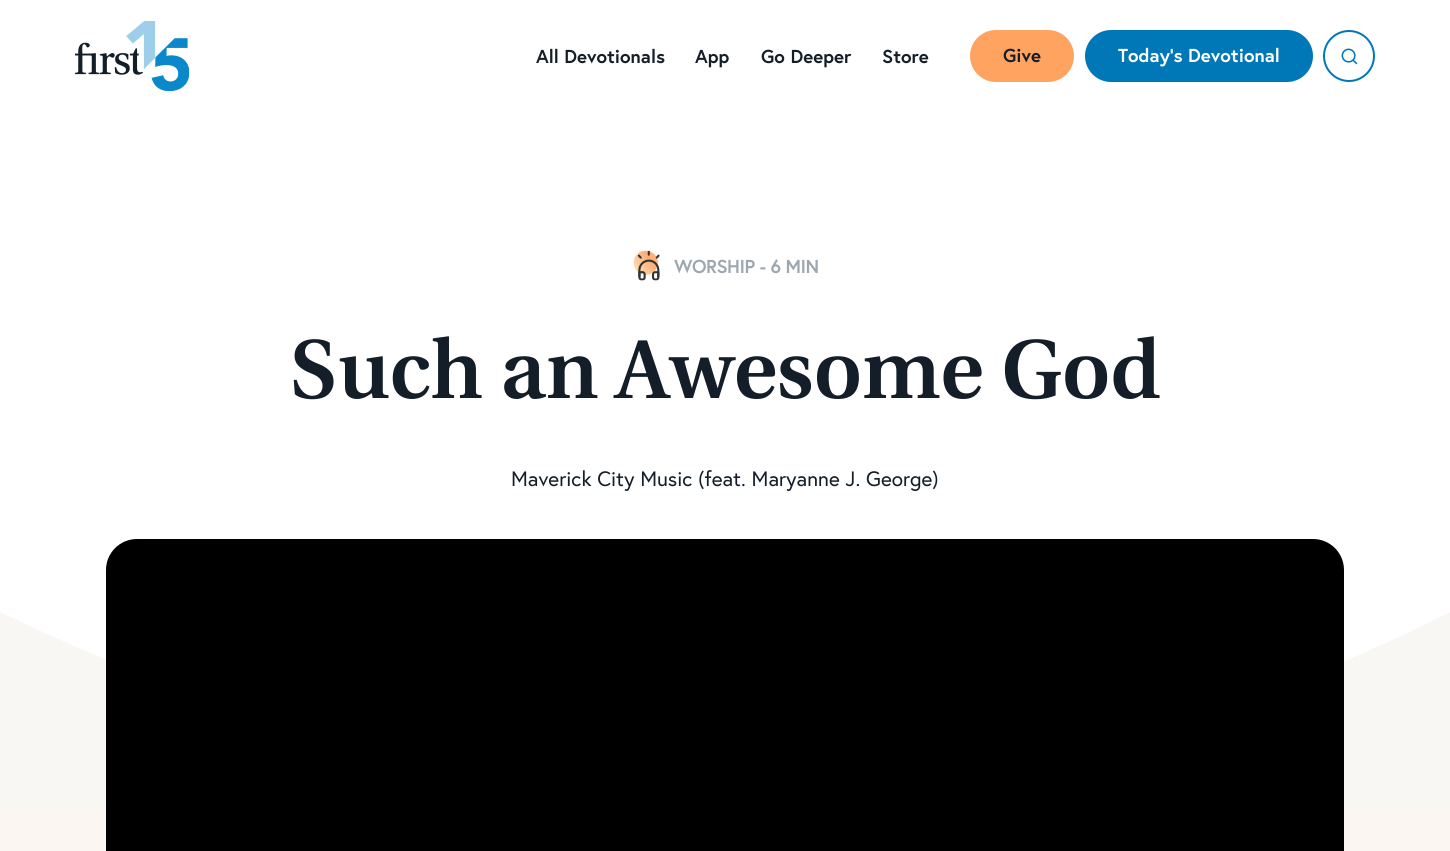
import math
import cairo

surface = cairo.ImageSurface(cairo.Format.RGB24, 1450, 851)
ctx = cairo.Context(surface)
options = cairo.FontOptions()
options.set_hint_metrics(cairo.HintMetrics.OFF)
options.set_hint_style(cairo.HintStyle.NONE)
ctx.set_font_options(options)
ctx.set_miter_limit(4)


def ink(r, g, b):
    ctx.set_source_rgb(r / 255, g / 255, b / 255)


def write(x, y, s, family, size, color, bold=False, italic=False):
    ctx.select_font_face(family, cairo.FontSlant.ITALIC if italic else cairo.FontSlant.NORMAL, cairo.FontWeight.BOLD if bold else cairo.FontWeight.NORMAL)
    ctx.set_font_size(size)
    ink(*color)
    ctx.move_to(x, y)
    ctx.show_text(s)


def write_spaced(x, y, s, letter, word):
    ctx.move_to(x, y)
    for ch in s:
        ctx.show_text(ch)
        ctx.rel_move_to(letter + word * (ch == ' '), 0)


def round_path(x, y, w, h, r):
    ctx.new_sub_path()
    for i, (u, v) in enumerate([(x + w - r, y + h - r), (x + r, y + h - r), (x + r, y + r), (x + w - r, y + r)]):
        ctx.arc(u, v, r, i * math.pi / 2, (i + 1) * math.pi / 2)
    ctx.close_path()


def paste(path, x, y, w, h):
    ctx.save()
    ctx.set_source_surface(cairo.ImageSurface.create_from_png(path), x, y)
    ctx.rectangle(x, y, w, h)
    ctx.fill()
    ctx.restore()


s1 = dict(family="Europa", size=18.75, color=(19, 30, 41), bold=True)
s2 = dict(family="Europa", size=18.75, color=(255, 255, 255), bold=True)
s3 = dict(family="Utopia SemiBold", size=83.25, color=(19, 30, 41))
s4 = dict(family="Europa", size=20.8, color=(19, 30, 41))

ink(255, 255, 255)
ctx.paint()
paste("pic1.png", 75, 21, 114, 70)
write(536, 63, "All Devotionals", **s1)
write(695, 63, "App", **s1)
write(761, 63, "Go Deeper", **s1)
write(882, 63, "Store", **s1)
ink(255, 163, 97)
round_path(971, 31, 102, 50, 25)
ctx.fill_preserve()
ctx.stroke()
write(1003, 62, "Give", **s1)
ink(0, 120, 184)
round_path(1086, 31, 226, 50, 25)
ctx.fill_preserve()
ctx.stroke()
write(1118, 62, "Today's Devotional", **s2)
ctx.new_path()
ctx.arc(1349, 56, 25, 0, 2 * math.pi)
ink(0, 120, 184)
ctx.stroke()
paste("pic2.png", 1341, 48, 17, 17)
paste("pic3.png", 633, 250, 27, 31)
ink(157, 167, 175)
write_spaced(674, 273, "WORSHIP - 6 MIN", -0.5, 0)
write(290, 398, "Such an Awesome God", **s3)
write(511, 486, "Maverick City Music (feat. Maryanne J. George)", **s4)
ink(248, 247, 244)
ctx.new_path()
ctx.move_to(1450, 612)
ctx.curve_to(1019, 831, 514, 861, 0, 612)
ctx.curve_to(-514, 363, 0, 810, 0, 810)
ctx.line_to(1450, 810)
ctx.curve_to(1450, 810, 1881, 394, 1450, 612)
ctx.close_path()
ctx.fill()
gradient = cairo.LinearGradient(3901, 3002, 449, -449)
gradient.add_color_stop_rgba(0, 0.988, 0.961, 0.949, 1)
gradient.add_color_stop_rgba(0.5, 0.988, 0.961, 0.949, 1)
gradient.add_color_stop_rgba(1, 0.988, 0.961, 0.949, 1)
ctx.set_source(gradient)
ctx.rectangle(0, 810, 1450, 41)
ctx.fill()
ink(0, 0, 0)
round_path(106, 539, 1238, 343, 31)
ctx.fill()
surface.write_to_png("screenshot.png")
